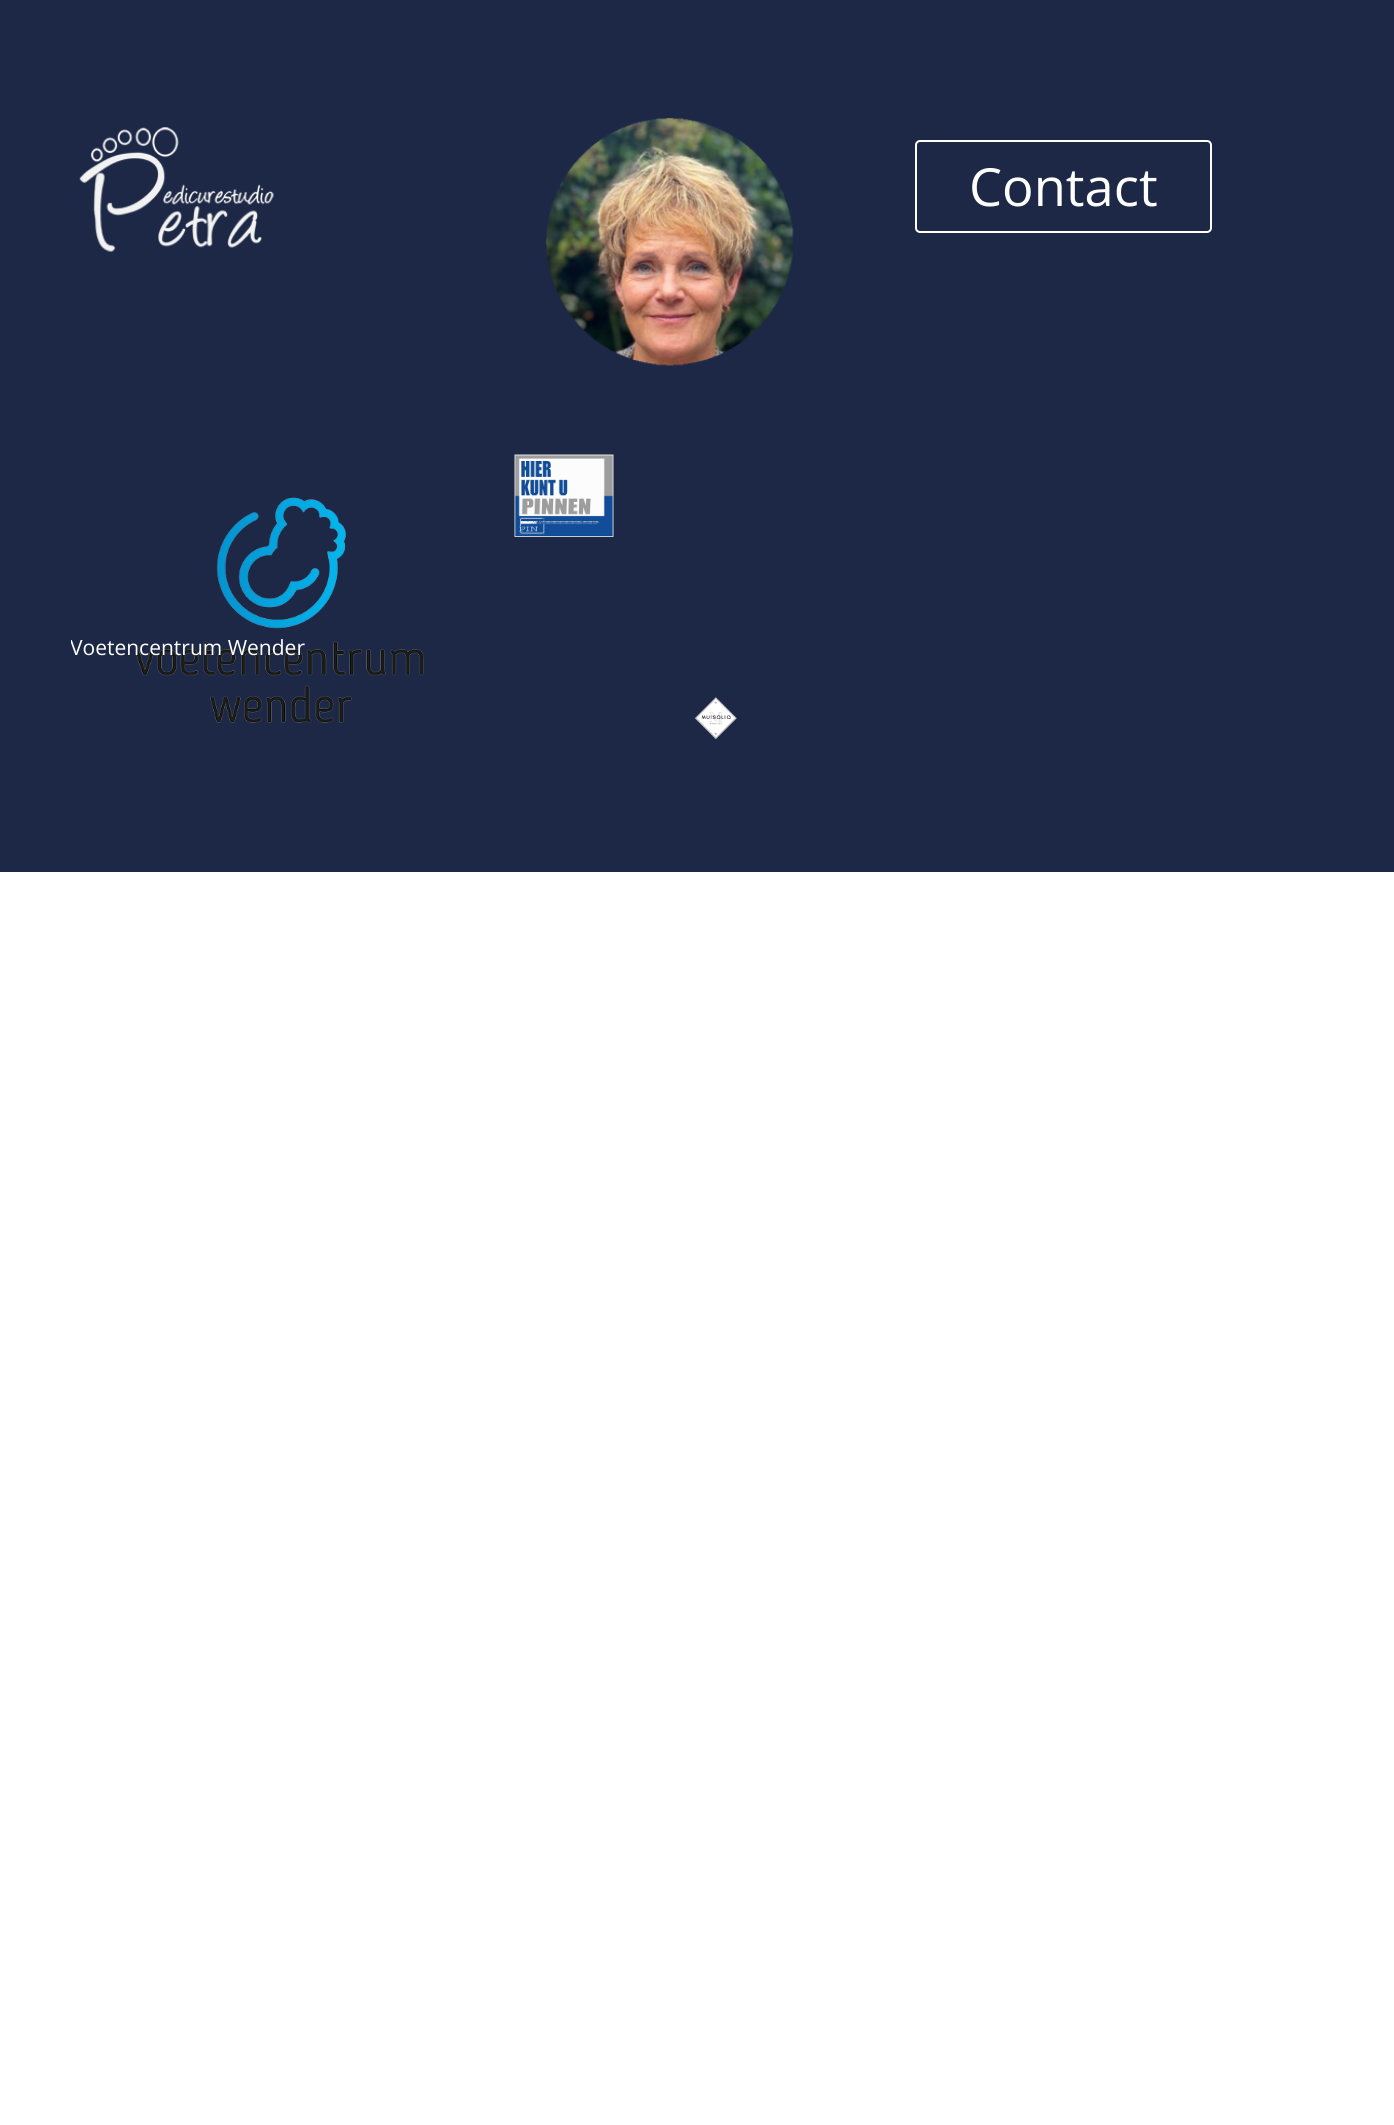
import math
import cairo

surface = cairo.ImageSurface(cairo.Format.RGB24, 1394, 2125)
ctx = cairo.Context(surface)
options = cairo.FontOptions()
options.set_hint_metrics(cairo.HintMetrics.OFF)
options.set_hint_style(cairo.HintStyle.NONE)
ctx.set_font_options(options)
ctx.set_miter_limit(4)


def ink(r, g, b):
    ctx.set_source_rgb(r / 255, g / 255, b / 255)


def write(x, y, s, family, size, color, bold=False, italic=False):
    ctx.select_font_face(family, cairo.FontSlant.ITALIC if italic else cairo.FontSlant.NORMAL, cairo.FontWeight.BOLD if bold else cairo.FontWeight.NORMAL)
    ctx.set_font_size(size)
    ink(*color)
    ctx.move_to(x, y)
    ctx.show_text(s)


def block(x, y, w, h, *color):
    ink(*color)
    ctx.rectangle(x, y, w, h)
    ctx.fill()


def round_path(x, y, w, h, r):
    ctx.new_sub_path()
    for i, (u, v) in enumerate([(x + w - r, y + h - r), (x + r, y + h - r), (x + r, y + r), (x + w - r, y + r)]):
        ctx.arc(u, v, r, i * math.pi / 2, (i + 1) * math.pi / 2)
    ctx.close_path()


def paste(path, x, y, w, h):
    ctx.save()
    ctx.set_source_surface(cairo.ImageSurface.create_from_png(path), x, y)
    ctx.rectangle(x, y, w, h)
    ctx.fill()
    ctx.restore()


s1 = dict(family="Open Sans", size=52.5, color=(255, 255, 255))
s2 = dict(family="Open Sans", size=21, color=(255, 255, 255))

ink(255, 255, 255)
ctx.paint()
block(0, 0, 1394, 872, 29, 40, 70)
paste("pic1.png", 79, 127, 195, 125)
paste("pic2.png", 546, 118, 248, 248)
round_path(916, 141, 295, 91, 4)
ink(255, 255, 255)
ctx.stroke()
write(969, 206, "Contact", **s1)
paste("pic3.png", 514, 454, 100, 83)
paste("pic4.png", 135, 497, 289, 226)
ctx.save()
ctx.rectangle(71, 75, 1255, 722)
ctx.clip()
write(70, 655, "Voetencentrum Wender", **s2)
ctx.restore()
paste("pic5.png", 694, 697, 43, 43)
surface.write_to_png("screenshot.png")
